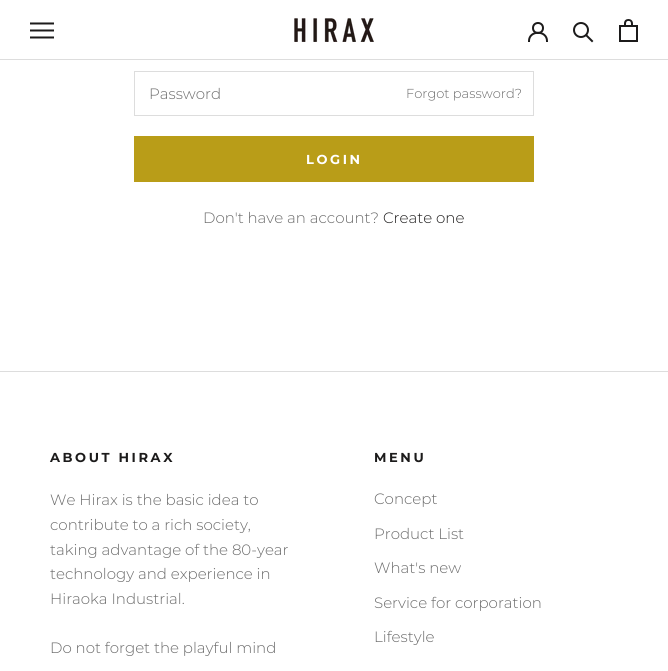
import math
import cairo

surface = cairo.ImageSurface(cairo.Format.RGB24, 668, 671)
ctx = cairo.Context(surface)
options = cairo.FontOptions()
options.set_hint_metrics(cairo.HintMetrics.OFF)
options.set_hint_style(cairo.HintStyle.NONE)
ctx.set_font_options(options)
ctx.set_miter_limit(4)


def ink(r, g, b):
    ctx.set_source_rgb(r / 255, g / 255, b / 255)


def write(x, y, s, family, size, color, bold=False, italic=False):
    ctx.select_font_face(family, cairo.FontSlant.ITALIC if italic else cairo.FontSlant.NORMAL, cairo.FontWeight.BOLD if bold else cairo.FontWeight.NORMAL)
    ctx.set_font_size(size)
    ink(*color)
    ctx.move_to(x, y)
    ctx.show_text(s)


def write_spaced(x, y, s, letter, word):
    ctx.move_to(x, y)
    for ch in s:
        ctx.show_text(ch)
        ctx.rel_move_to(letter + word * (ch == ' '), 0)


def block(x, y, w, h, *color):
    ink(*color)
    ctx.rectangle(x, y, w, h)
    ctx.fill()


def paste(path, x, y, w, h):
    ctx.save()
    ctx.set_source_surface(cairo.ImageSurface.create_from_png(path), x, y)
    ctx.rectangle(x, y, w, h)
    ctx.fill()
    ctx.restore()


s1 = dict(family="Montserrat Light", size=15, color=(106, 106, 106))
s2 = dict(family="Montserrat Light", size=13, color=(106, 106, 106))
s3 = dict(family="Montserrat Light", size=15, color=(28, 27, 27))

ink(255, 255, 255)
ctx.paint()
block(0, 59, 668, 1, 221, 221, 221)
paste("pic1.png", 30, 22, 24, 17)
paste("pic2.png", 294, 18, 80, 24)
ctx.new_path()
ctx.move_to(529, 41)
ctx.curve_to(529, 30, 547, 30, 547, 41)
ink(28, 27, 27)
ctx.set_line_cap(cairo.LineCap.SQUARE)
ctx.stroke()
ctx.arc(538, 28, 5, 0, 2 * math.pi)
ctx.set_line_cap(cairo.LineCap.BUTT)
ctx.stroke()
ctx.new_path()
ctx.move_to(592, 41)
ctx.line_to(586.5, 35.5)
ctx.set_line_cap(cairo.LineCap.SQUARE)
ctx.stroke()
ctx.arc(581, 30, 7, 0, 2 * math.pi)
ctx.set_line_cap(cairo.LineCap.BUTT)
ctx.stroke()
paste("pic3.png", 619, 19, 19, 23)
ctx.rectangle(134.5, 71.5, 399, 44)
ink(221, 221, 221)
ctx.set_line_width(1)
ctx.stroke()
write(149, 99, "Password", **s1)
write(406, 98, "Forgot password?", **s2)
ctx.rectangle(134.5, 136.5, 399, 45)
ink(185, 157, 24)
ctx.stroke()
block(135, 137, 398, 44, 185, 157, 24)
ctx.select_font_face("Montserrat", cairo.FontSlant.NORMAL, cairo.FontWeight.BOLD)
ink(255, 255, 255)
write_spaced(306, 164, "LOGIN", 2.6, 0)
write(203, 223, "Don't have an account?", **s1)
write(383, 223, "Create one", **s3)
block(0, 371, 668, 1, 221, 221, 221)
ctx.select_font_face("Montserrat", cairo.FontSlant.NORMAL, cairo.FontWeight.BOLD)
ctx.set_font_size(13)
ink(28, 27, 27)
write_spaced(50, 462, "ABOUT HIRAX", 2.6, 0)
write(50, 505, "We Hirax is the basic idea to", **s1)
write(50, 530, "contribute to a rich society,", **s1)
write(50, 555, "taking advantage of the 80-year", **s1)
write(50, 579, "technology and experience in", **s1)
write(50, 604, "Hiraoka Industrial.", **s1)
write(50, 653, "Do not forget the playful mind", **s1)
ctx.select_font_face("Montserrat", cairo.FontSlant.NORMAL, cairo.FontWeight.BOLD)
ctx.set_font_size(13)
ink(28, 27, 27)
write_spaced(374, 462, "MENU", 2.6, 0)
write(374, 504, "Concept", **s1)
write(374, 539, "Product List", **s1)
write(374, 573, "What's new", **s1)
write(374, 608, "Service for corporation", **s1)
write(374, 642, "Lifestyle", **s1)
surface.write_to_png("screenshot.png")
